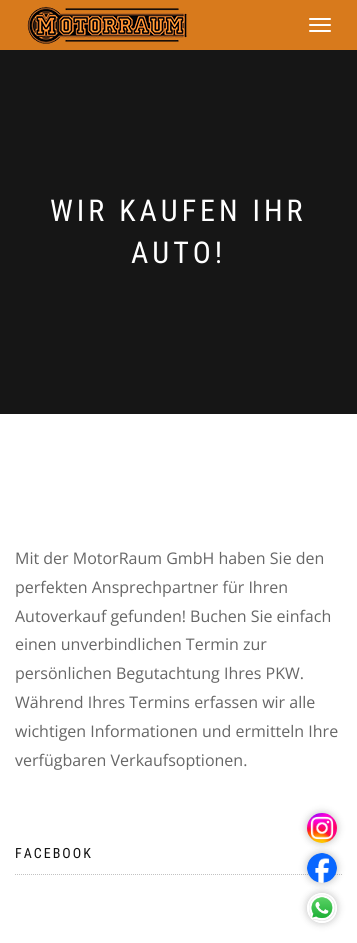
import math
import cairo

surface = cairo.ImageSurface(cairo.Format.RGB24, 357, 943)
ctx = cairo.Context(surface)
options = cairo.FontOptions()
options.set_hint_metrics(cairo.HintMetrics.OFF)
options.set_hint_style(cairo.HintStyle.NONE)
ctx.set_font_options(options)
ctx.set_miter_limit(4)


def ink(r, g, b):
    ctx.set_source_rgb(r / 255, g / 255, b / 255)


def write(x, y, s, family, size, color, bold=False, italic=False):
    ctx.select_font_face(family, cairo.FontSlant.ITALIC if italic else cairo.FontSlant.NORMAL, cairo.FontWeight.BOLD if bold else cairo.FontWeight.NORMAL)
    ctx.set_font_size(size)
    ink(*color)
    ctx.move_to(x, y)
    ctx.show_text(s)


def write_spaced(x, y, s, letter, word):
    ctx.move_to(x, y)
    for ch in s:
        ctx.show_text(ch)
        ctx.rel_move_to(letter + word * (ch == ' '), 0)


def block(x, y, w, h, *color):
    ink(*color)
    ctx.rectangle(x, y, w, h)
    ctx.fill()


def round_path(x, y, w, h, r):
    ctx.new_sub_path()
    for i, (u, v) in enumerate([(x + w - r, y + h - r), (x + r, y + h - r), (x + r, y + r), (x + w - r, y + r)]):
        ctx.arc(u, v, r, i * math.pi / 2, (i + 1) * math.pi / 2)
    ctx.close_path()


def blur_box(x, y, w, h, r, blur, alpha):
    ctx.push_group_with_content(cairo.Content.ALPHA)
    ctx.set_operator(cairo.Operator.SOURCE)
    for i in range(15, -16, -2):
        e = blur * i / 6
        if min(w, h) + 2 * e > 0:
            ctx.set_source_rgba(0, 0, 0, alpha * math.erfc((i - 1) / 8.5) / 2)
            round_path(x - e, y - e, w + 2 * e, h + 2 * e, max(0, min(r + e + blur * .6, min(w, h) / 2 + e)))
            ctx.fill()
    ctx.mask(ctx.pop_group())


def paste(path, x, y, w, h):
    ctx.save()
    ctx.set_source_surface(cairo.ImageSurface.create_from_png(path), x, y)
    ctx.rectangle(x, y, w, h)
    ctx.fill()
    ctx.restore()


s1 = dict(family="Open Sans", size=16, color=(102, 102, 102))

ink(255, 255, 255)
ctx.paint()
block(0, 0, 357, 50, 216, 122, 28)
paste("pic1.png", 27, 6, 160, 38)
ink(255, 255, 255)
round_path(309, 18, 22, 2, 1)
ctx.fill()
round_path(309, 24, 22, 2, 1)
ctx.fill()
round_path(309, 30, 22, 2, 1)
ctx.fill()
block(0, 50, 357, 364, 22, 22, 22)
ctx.select_font_face("Roboto Condensed")
ctx.set_font_size(30)
ink(255, 255, 255)
write_spaced(50, 221, "WIR KAUFEN IHR", 4, 0)
write_spaced(131, 263, "AUTO!", 4, 0)
write(15, 564, "Mit der MotorRaum GmbH haben Sie den", **s1)
write(15, 593, "perfekten Ansprechpartner für Ihren", **s1)
write(15, 622, "Autoverkauf gefunden! Buchen Sie einfach", **s1)
write(15, 650, "einen unverbindlichen Termin zur", **s1)
write(15, 679, "persönlichen Begutachtung Ihres PKW.", **s1)
write(15, 708, "Während Ihres Termins erfassen wir alle", **s1)
write(15, 737, "wichtigen Informationen und ermitteln Ihre", **s1)
write(15, 766, "verfügbaren Verkaufsoptionen.", **s1)
ctx.new_path()
ctx.move_to(15, 874.5)
ctx.line_to(342, 874.5)
ink(194, 194, 194)
ctx.set_line_width(1)
ctx.set_dash([1, 1])
ctx.stroke()
ctx.select_font_face("Roboto Condensed")
ctx.set_font_size(14)
ink(17, 17, 17)
write_spaced(15, 858, "FACEBOOK", 2, 0)
ctx.save()
ctx.set_fill_rule(cairo.FillRule.EVEN_ODD)
ctx.new_path()
ctx.move_to(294, 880)
ctx.line_to(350, 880)
ctx.line_to(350, 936)
ctx.line_to(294, 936)
ctx.close_path()
ctx.move_to(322, 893)
ctx.curve_to(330.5, 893, 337, 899.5, 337, 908)
ctx.curve_to(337, 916.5, 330.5, 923, 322, 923)
ctx.curve_to(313.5, 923, 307, 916.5, 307, 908)
ctx.curve_to(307, 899.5, 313.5, 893, 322, 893)
ctx.close_path()
ctx.clip()
ink(0, 0, 0)
blur_box(307, 893, 30, 30, 15, 4, 0.25)
ctx.restore()
paste("pic4.png", 309, 894, 27, 27)
ink(0, 0, 0)
blur_box(307, 853, 30, 30, 15, 4, 0.25)
paste("pic3.png", 307, 853, 30, 30)
blur_box(307, 813, 30, 30, 15, 4, 0.25)
paste("pic2.png", 307, 813, 30, 30)
surface.write_to_png("screenshot.png")
